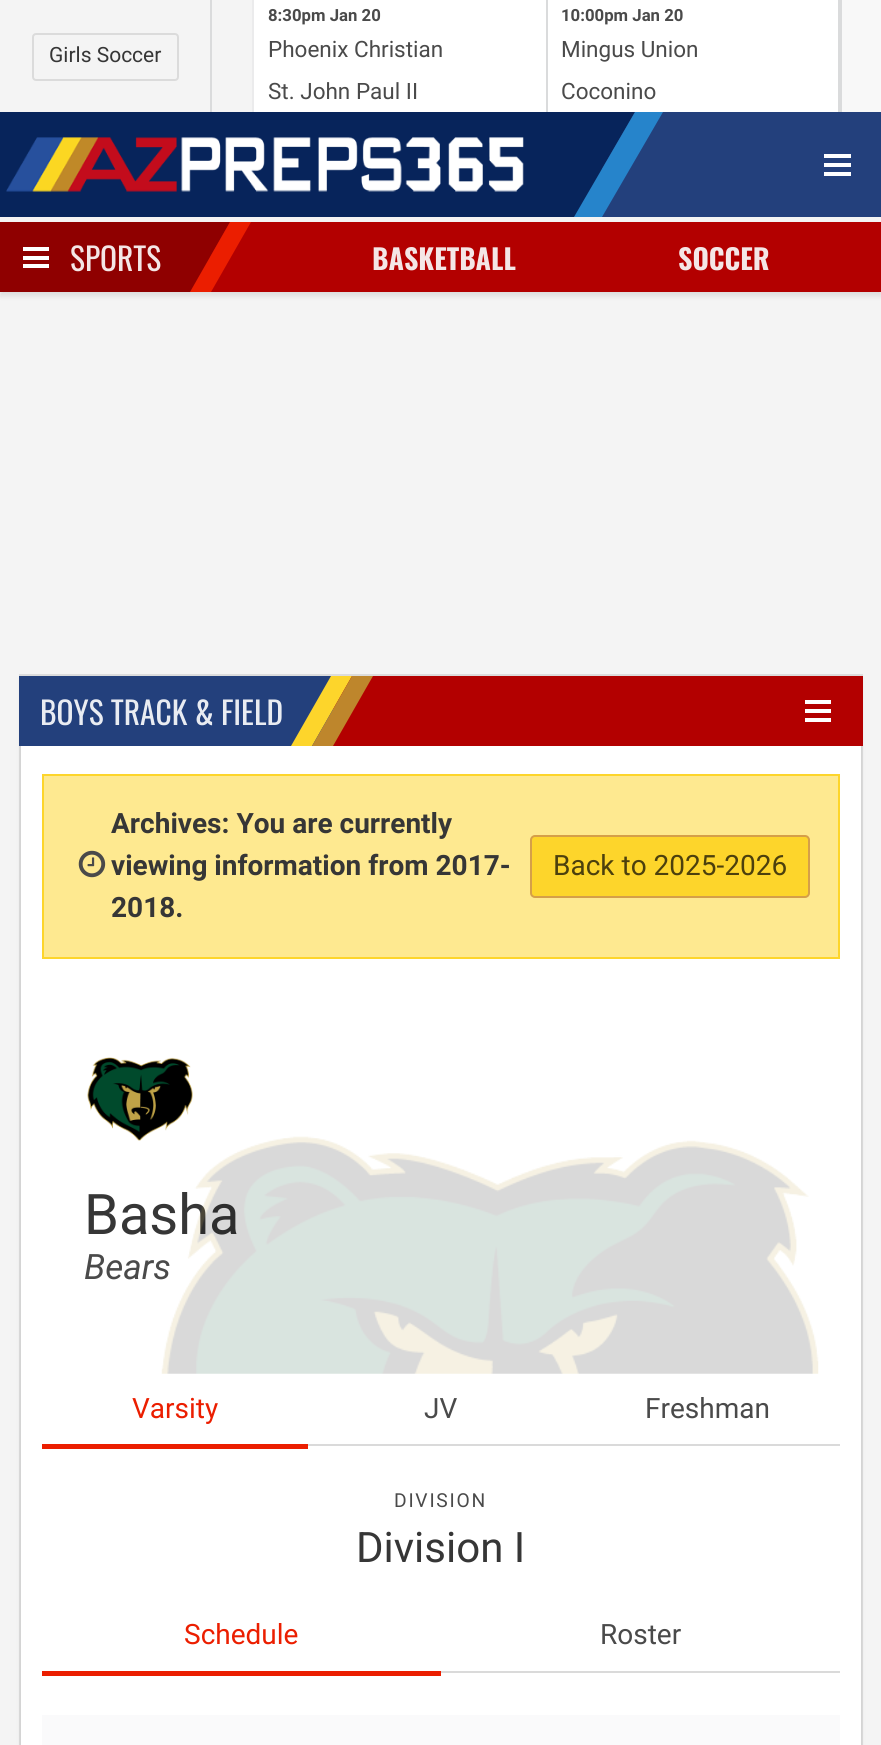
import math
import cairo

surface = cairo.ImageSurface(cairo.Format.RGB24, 881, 1745)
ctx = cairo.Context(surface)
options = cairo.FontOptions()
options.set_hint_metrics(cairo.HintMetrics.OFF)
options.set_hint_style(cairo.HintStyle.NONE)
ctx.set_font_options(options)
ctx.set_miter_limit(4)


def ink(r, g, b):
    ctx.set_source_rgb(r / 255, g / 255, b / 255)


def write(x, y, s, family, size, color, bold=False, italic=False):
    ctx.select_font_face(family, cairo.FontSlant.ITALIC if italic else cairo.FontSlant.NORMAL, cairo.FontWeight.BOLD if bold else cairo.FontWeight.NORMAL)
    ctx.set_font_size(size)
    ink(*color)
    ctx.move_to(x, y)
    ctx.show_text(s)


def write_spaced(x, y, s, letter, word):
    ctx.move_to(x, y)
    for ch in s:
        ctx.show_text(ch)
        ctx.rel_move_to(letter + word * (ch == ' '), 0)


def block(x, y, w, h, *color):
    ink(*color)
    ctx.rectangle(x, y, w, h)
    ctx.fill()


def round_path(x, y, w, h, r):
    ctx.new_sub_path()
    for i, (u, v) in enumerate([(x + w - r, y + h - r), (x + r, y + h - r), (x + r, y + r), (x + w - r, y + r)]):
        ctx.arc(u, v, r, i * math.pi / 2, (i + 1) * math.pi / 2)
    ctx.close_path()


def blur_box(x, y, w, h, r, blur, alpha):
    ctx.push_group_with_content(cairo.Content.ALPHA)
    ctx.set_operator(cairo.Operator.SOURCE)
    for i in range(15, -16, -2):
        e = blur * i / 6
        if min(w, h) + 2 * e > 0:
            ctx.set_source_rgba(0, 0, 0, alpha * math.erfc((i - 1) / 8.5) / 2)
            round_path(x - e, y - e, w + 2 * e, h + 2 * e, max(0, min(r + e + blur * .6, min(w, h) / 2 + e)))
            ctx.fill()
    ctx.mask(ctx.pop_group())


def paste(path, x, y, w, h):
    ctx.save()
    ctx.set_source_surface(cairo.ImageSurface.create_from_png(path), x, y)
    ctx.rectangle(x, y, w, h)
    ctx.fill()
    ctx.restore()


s1 = dict(family="Roboto", size=21, color=(54, 54, 54))
s2 = dict(family="Roboto", size=16.75, color=(74, 74, 74), bold=True)
s3 = dict(family="Roboto", size=22.5, color=(74, 74, 74))
s4 = dict(family="Oswald", size=31.5, color=(244, 230, 230))
s5 = dict(family="Oswald", size=28, color=(244, 230, 230), bold=True)
s6 = dict(family="Oswald", size=31.5, color=(233, 236, 242))
s7 = dict(family="Roboto", size=28, color=(54, 54, 54), bold=True)
s8 = dict(family="Roboto", size=28, color=(76, 64, 13))
s9 = dict(family="Roboto", size=56, color=(54, 54, 54))
s10 = dict(family="Roboto", size=35, color=(74, 74, 74), italic=True)
s11 = dict(family="Roboto", size=28, color=(235, 30, 0))
s12 = dict(family="Roboto", size=28, color=(74, 74, 74))
s13 = dict(family="Roboto", size=42, color=(54, 54, 54))

ink(244, 244, 244)
ctx.paint()
round_path(33, 34, 145, 46, 3)
ink(219, 219, 219)
ctx.stroke()
write(49, 62, "Girls Soccer", **s1)
block(210, 0, 2, 112, 218, 219, 220)
block(252, 0, 2, 112, 235, 235, 236)
block(254, 0, 292, 112, 255, 255, 255)
block(546, 0, 2, 112, 218, 219, 220)
write(268, 21, "8:30pm Jan 20", **s2)
write(268, 57, "Phoenix Christian", **s3)
write(268, 99, "St. John Paul II", **s3)
block(548, 0, 290, 112, 255, 255, 255)
block(838, 0, 4, 112, 218, 219, 220)
write(561, 21, "10:00pm Jan 20", **s2)
write(561, 57, "Mingus Union", **s3)
write(561, 99, "Coconino", **s3)
block(842, 0, 39, 112, 248, 248, 248)
block(602, 112, 279, 105, 35, 64, 124)
block(0, 112, 602, 105, 7, 36, 91)
paste("pic1.png", 6, 137, 518, 55)
ctx.new_path()
ctx.move_to(600, 112)
ctx.line_to(635, 112)
ctx.line_to(574, 217)
ctx.line_to(539, 217)
ctx.close_path()
ctx.fill()
ink(38, 132, 203)
ctx.new_path()
ctx.move_to(635, 112)
ctx.line_to(663, 112)
ctx.line_to(602, 217)
ctx.line_to(574, 217)
ctx.close_path()
ctx.fill()
block(824, 154, 27, 4, 255, 255, 255)
block(824, 163, 27, 4, 255, 255, 255)
block(824, 172, 27, 4, 255, 255, 255)
ink(10, 10, 10)
blur_box(0, 226, 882, 70, 0, 2.5, 0.1)
block(210, 222, 671, 70, 179, 0, 0)
block(0, 222, 210, 70, 143, 0, 0)
block(23, 247, 26, 4, 255, 255, 255)
block(23, 256, 26, 4, 255, 255, 255)
block(23, 264, 26, 4, 255, 255, 255)
write(70, 271, "SPORTS", **s4)
ink(143, 0, 0)
ctx.new_path()
ctx.move_to(209, 222)
ctx.line_to(230, 222)
ctx.line_to(190, 292)
ctx.line_to(169, 292)
ctx.close_path()
ctx.fill()
ink(235, 30, 0)
ctx.new_path()
ctx.move_to(230, 222)
ctx.line_to(251, 222)
ctx.line_to(211, 292)
ctx.line_to(190, 292)
ctx.close_path()
ctx.fill()
write(372, 270, "BASKETBALL", **s5)
write(678, 270, "SOCCER", **s5)
ctx.rectangle(20, 675, 842, 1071)
ink(221, 221, 221)
ctx.stroke()
ink(10, 10, 10)
blur_box(21, 679, 840, 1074, 0, 2.5, 0.1)
block(21, 746, 840, 999, 255, 255, 255)
block(333, 676, 530, 70, 179, 0, 0)
block(19, 676, 314, 70, 35, 64, 124)
write(40, 725, "BOYS TRACK & FIELD", **s6)
ink(253, 213, 43)
ctx.new_path()
ctx.move_to(331, 676)
ctx.line_to(352, 676)
ctx.line_to(312, 746)
ctx.line_to(291, 746)
ctx.close_path()
ctx.fill()
ink(190, 134, 44)
ctx.new_path()
ctx.move_to(352, 676)
ctx.line_to(373, 676)
ctx.line_to(333, 746)
ctx.line_to(312, 746)
ctx.close_path()
ctx.fill()
block(805, 700, 26, 4, 255, 255, 255)
block(805, 709, 26, 4, 255, 255, 255)
block(805, 718, 26, 4, 255, 255, 255)
ink(254, 233, 144)
ctx.rectangle(43, 775, 796, 183)
ctx.fill_preserve()
ink(253, 213, 43)
ctx.stroke()
paste("pic2.png", 78, 850, 28, 28)
write(111, 833, "Archives: You are currently", **s7)
write(111, 875, "viewing information from 2017-", **s7)
write(111, 917, "2018.", **s7)
ink(253, 213, 43)
round_path(531, 836, 278, 61, 4)
ctx.fill_preserve()
ink(213, 159, 72)
ctx.stroke()
write(553, 875, "Back to 2025-2026", **s8)
write(84, 1234, "Basha", **s9)
write(84, 1279, "Bears", **s10)
paste("pic3.png", 161, 1136, 658, 238)
paste("pic4.png", 87, 1057, 106, 84)
block(308, 1444, 532, 2, 218, 218, 218)
block(42, 1444, 266, 5, 235, 30, 0)
write(132, 1418, "Varsity", **s11)
write(424, 1418, "JV", **s12)
write(645, 1418, "Freshman", **s12)
ctx.set_font_size(19.25)
write_spaced(394, 1507, "DIVISION", 1.75, 0)
write(356, 1562, "Division I", **s13)
block(441, 1671, 399, 2, 218, 218, 218)
block(42, 1671, 399, 5, 235, 30, 0)
write(184, 1644, "Schedule", **s11)
write(600, 1644, "Roster", **s12)
block(42, 1715, 798, 30, 250, 250, 251)
surface.write_to_png("screenshot.png")
